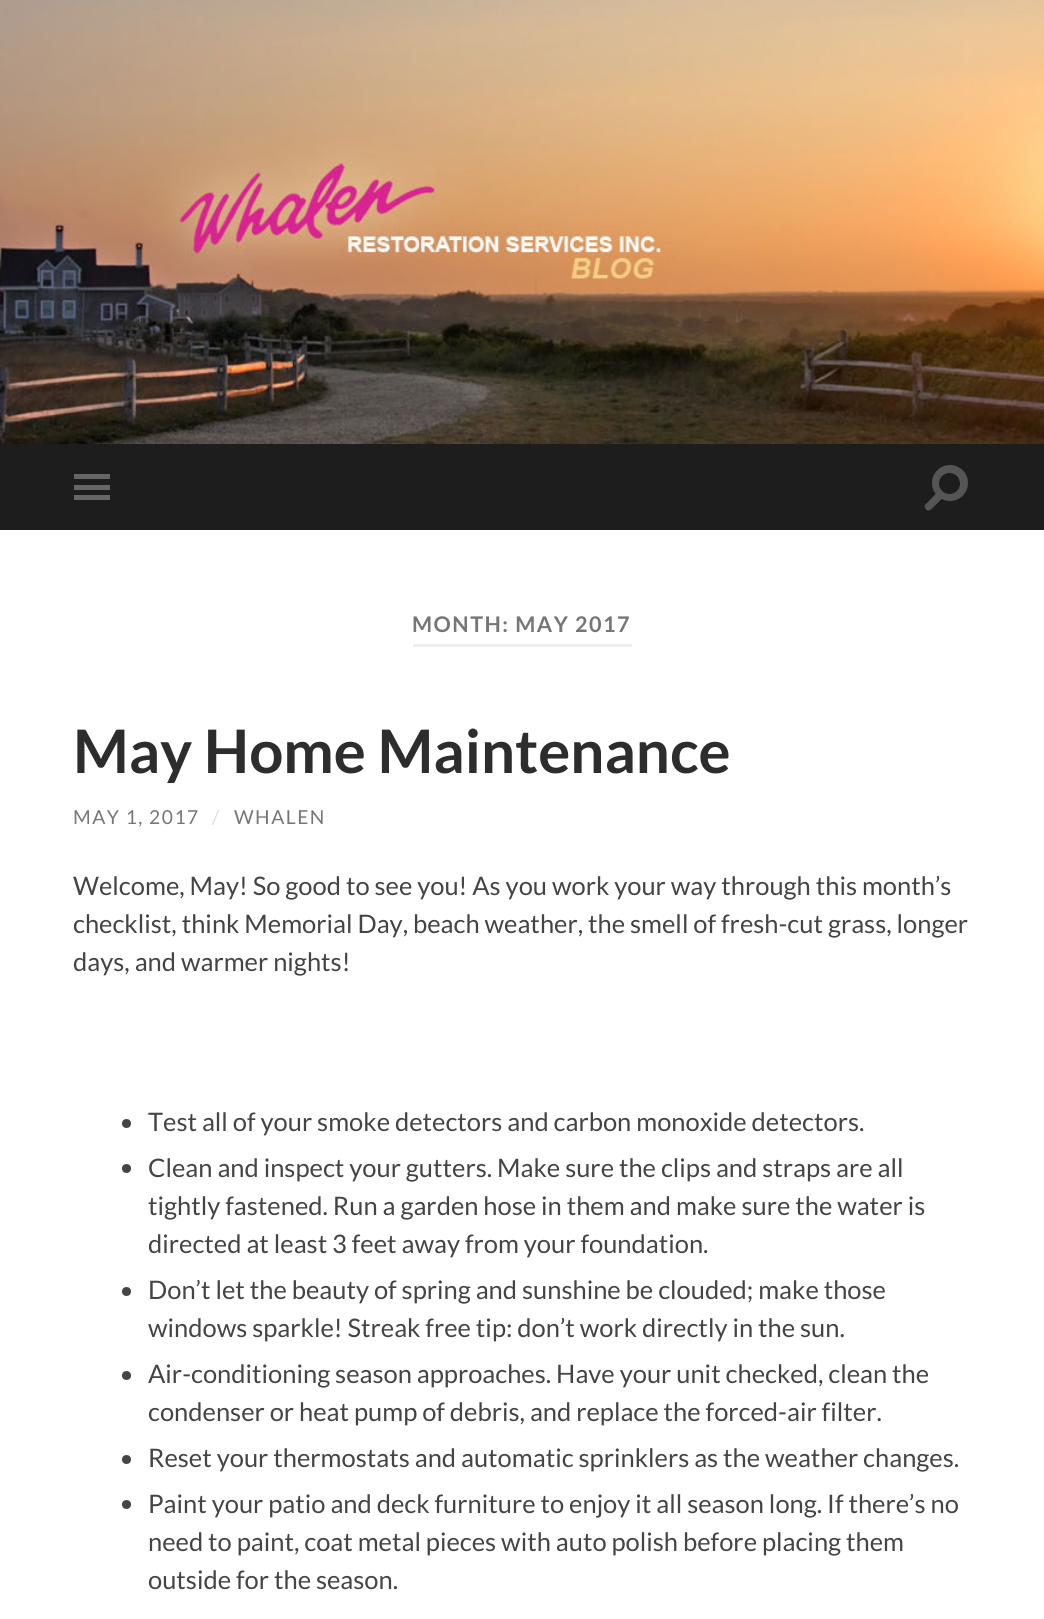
import math
import cairo

surface = cairo.ImageSurface(cairo.Format.RGB24, 1044, 1619)
ctx = cairo.Context(surface)
options = cairo.FontOptions()
options.set_hint_metrics(cairo.HintMetrics.OFF)
options.set_hint_style(cairo.HintStyle.NONE)
ctx.set_font_options(options)
ctx.set_miter_limit(4)


def ink(r, g, b):
    ctx.set_source_rgb(r / 255, g / 255, b / 255)


def write(x, y, s, family, size, color, bold=False, italic=False):
    ctx.select_font_face(family, cairo.FontSlant.ITALIC if italic else cairo.FontSlant.NORMAL, cairo.FontWeight.BOLD if bold else cairo.FontWeight.NORMAL)
    ctx.set_font_size(size)
    ink(*color)
    ctx.move_to(x, y)
    ctx.show_text(s)


def write_spaced(x, y, s, letter, word):
    ctx.move_to(x, y)
    for ch in s:
        ctx.show_text(ch)
        ctx.rel_move_to(letter + word * (ch == ' '), 0)


def block(x, y, w, h, *color):
    ink(*color)
    ctx.rectangle(x, y, w, h)
    ctx.fill()


def paste(path, x, y, w, h):
    ctx.save()
    ctx.set_source_surface(cairo.ImageSurface.create_from_png(path), x, y)
    ctx.rectangle(x, y, w, h)
    ctx.fill()
    ctx.restore()


s1 = dict(family="Lato", size=60, color=(45, 45, 45), bold=True)
s2 = dict(family="Lato", size=25.5, color=(68, 68, 68))

ink(255, 255, 255)
ctx.paint()
paste("pic1.png", 0, 0, 1044, 444)
block(0, 444, 1044, 86, 29, 29, 29)
block(74, 474, 36, 5, 102, 102, 102)
block(74, 485, 36, 5, 102, 102, 102)
block(74, 495, 36, 5, 102, 102, 102)
ink(85, 85, 85)
ctx.arc(950, 483, 18, 0, 2 * math.pi)
ctx.fill()
ink(29, 29, 29)
ctx.arc(949.5, 483.5, 10.5, 0, 2 * math.pi)
ctx.fill()
ink(85, 85, 85)
ctx.new_path()
ctx.move_to(925.5, 504.5)
ctx.line_to(938, 491.5)
ctx.line_to(943.5, 497)
ctx.line_to(935, 505.5)
ctx.curve_to(932, 508.5, 928.5, 513.5, 925, 508)
ctx.curve_to(924.5, 507, 924.5, 505.5, 925.5, 504.5)
ctx.close_path()
ctx.fill()
block(413, 644, 219, 3, 238, 238, 238)
ctx.select_font_face("Lato", cairo.FontSlant.NORMAL, cairo.FontWeight.BOLD)
ctx.set_font_size(21.6)
ink(118, 118, 118)
write_spaced(412, 632, "MONTH: MAY 2017", 1.5, 0)
write(73, 773, "May Home Maintenance", **s1)
ctx.select_font_face("Lato")
ctx.set_font_size(19.25)
ink(118, 118, 118)
write_spaced(73, 824, "MAY 1, 2017", 1.5, 0)
ink(221, 221, 221)
write_spaced(212, 824, "/", 1.5, 0)
ink(118, 118, 118)
write_spaced(234, 824, "WHALEN", 1.5, 0)
write(73, 895, "Welcome, May! So good to see you! As you work your way through this month’s", **s2)
write(73, 933, "checklist, think Memorial Day, beach weather, the smell of fresh-cut grass, longer", **s2)
write(73, 971, "days, and warmer nights!", **s2)
ctx.new_path()
ctx.arc(126.5, 1123.5, 4.5, 0, 2 * math.pi)
ctx.fill()
write(148, 1131, "Test all of your smoke detectors and carbon monoxide detectors.", **s2)
ctx.new_path()
ctx.arc(126.5, 1168.5, 4.5, 0, 2 * math.pi)
ctx.fill()
write(148, 1177, "Clean and inspect your gutters. Make sure the clips and straps are all", **s2)
write(148, 1215, "tightly fastened. Run a garden hose in them and make sure the water is", **s2)
write(148, 1253, "directed at least 3 feet away from your foundation.", **s2)
ctx.new_path()
ctx.arc(126.5, 1291.5, 4.5, 0, 2 * math.pi)
ctx.fill()
write(148, 1299, "Don’t let the beauty of spring and sunshine be clouded; make those", **s2)
write(148, 1337, "windows sparkle! Streak free tip: don’t work directly in the sun.", **s2)
ctx.new_path()
ctx.arc(126.5, 1375.5, 4.5, 0, 2 * math.pi)
ctx.fill()
write(148, 1383, "Air-conditioning season approaches. Have your unit checked, clean the", **s2)
write(148, 1421, "condenser or heat pump of debris, and replace the forced-air filter.", **s2)
ctx.new_path()
ctx.arc(126.5, 1459.5, 4.5, 0, 2 * math.pi)
ctx.fill()
write(148, 1467, "Reset your thermostats and automatic sprinklers as the weather changes.", **s2)
ctx.new_path()
ctx.arc(126.5, 1504.5, 4.5, 0, 2 * math.pi)
ctx.fill()
write(148, 1513, "Paint your patio and deck furniture to enjoy it all season long. If there’s no", **s2)
write(148, 1551, "need to paint, coat metal pieces with auto polish before placing them", **s2)
write(148, 1589, "outside for the season.", **s2)
surface.write_to_png("screenshot.png")
